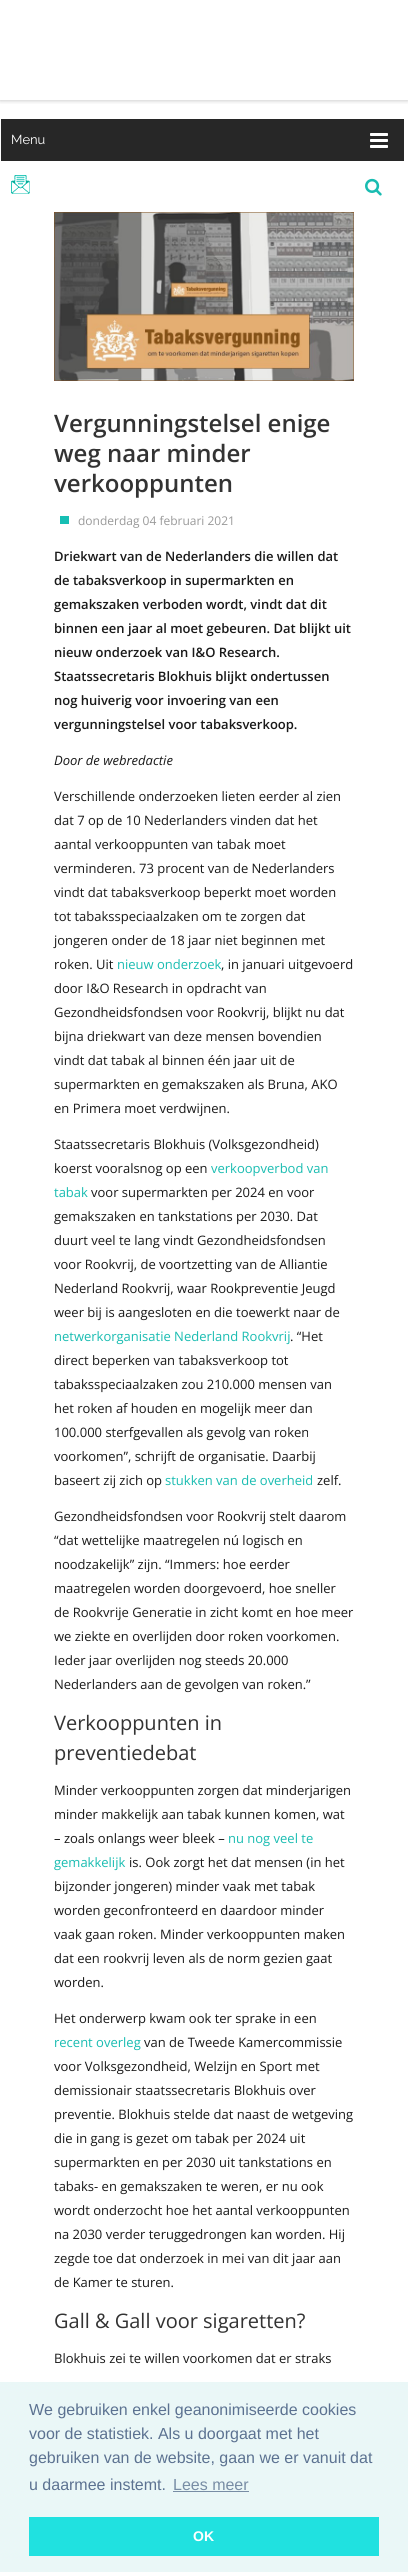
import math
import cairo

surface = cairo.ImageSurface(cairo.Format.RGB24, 408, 2572)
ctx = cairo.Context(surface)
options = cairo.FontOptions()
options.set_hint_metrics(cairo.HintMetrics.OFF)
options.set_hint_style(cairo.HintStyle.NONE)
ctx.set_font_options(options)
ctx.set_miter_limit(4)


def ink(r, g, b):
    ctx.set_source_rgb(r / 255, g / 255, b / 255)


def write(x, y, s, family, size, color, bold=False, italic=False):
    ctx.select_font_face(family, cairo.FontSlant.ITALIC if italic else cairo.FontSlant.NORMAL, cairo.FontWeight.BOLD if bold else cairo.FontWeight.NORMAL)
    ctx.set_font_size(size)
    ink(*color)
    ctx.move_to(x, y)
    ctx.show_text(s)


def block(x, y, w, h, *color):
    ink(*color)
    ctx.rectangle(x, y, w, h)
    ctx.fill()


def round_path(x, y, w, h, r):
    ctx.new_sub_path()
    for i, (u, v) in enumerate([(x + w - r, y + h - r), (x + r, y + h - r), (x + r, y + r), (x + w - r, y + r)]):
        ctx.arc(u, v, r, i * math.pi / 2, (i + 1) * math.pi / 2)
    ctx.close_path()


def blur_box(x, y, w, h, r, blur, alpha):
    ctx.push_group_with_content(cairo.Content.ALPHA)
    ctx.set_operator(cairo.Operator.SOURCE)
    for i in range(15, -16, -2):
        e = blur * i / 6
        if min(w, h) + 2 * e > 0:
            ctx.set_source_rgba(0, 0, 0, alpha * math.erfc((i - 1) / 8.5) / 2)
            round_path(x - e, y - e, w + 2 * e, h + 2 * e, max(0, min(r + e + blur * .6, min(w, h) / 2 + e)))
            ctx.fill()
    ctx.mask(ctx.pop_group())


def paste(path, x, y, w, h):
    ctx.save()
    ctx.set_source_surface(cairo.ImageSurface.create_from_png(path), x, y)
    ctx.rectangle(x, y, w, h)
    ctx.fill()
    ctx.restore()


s1 = dict(family="Raleway", size=13, color=(255, 255, 255))
s2 = dict(family="Open Sans SemiBold", size=24, color=(51, 51, 51))
s3 = dict(family="Open Sans", size=12, color=(153, 153, 153))
s4 = dict(family="Open Sans SemiBold", size=13, color=(25, 25, 25))
s5 = dict(family="Open Sans", size=13, color=(25, 25, 25), italic=True)
s6 = dict(family="Open Sans", size=13, color=(25, 25, 25))
s7 = dict(family="Open Sans", size=13, color=(25, 188, 177))
s8 = dict(family="Open Sans", size=20, color=(51, 51, 51))
s9 = dict(family="Liberation Sans", size=16, color=(92, 114, 145))
s10 = dict(family="Liberation Sans", size=16, color=(120, 141, 165))
s11 = dict(family="Liberation Sans", size=14, color=(255, 255, 255), bold=True)

ink(255, 255, 255)
ctx.paint()
ctx.save()
ctx.rectangle(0, 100, 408, 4)
ctx.clip()
ink(0, 0, 0)
blur_box(0, 1, 408, 100, 0, 2, 0.2)
ctx.restore()
block(1, 119, 403, 42, 39, 39, 39)
write(11, 144, "Menu", **s1)
paste("pic1.png", 370, 133, 18, 15)
paste("pic2.png", 11, 175, 19, 19)
paste("pic3.png", 365, 178, 17, 18)
paste("pic4.png", 54, 212, 300, 169)
write(54, 432, "Vergunningstelsel enige", **s2)
write(54, 462, "weg naar minder", **s2)
write(54, 492, "verkooppunten", **s2)
block(60, 516, 9, 8, 23, 191, 180)
write(78, 525, "donderdag 04 februari 2021", **s3)
write(54, 561, "Driekwart van de Nederlanders die willen dat", **s4)
write(54, 585, "de tabaksverkoop in supermarkten en", **s4)
write(54, 609, "gemakszaken verboden wordt, vindt dat dit", **s4)
write(54, 633, "binnen een jaar al moet gebeuren. Dat blijkt uit", **s4)
write(54, 657, "nieuw onderzoek van I&O Research.", **s4)
write(54, 681, "Staatssecretaris Blokhuis blijkt ondertussen", **s4)
write(54, 705, "nog huiverig voor invoering van een", **s4)
write(54, 729, "vergunningstelsel voor tabaksverkoop.", **s4)
write(54, 765, "Door de webredactie", **s5)
write(54, 801, "Verschillende onderzoeken lieten eerder al zien", **s6)
write(54, 825, "dat 7 op de 10 Nederlanders vinden dat het", **s6)
write(54, 849, "aantal verkooppunten van tabak moet", **s6)
write(54, 873, "verminderen. 73 procent van de Nederlanders", **s6)
write(54, 897, "vindt dat tabaksverkoop beperkt moet worden", **s6)
write(54, 921, "tot tabaksspeciaalzaken om te zorgen dat", **s6)
write(54, 945, "jongeren onder de 18 jaar niet beginnen met", **s6)
write(54, 969, "roken. Uit", **s6)
write(117, 969, "nieuw onderzoek", **s7)
write(221, 969, ", in januari uitgevoerd", **s6)
write(54, 993, "door I&O Research in opdracht van", **s6)
write(54, 1017, "Gezondheidsfondsen voor Rookvrij, blijkt nu dat", **s6)
write(54, 1041, "bijna driekwart van deze mensen bovendien", **s6)
write(54, 1065, "vindt dat tabak al binnen één jaar uit de", **s6)
write(54, 1089, "supermarkten en gemakszaken als Bruna, AKO", **s6)
write(54, 1113, "en Primera moet verdwijnen.", **s6)
write(54, 1149, "Staatssecretaris Blokhuis (Volksgezondheid)", **s6)
write(54, 1173, "koerst vooralsnog op een", **s6)
write(211, 1173, "verkoopverbod van", **s7)
write(54, 1197, "tabak", **s7)
write(91, 1197, "voor supermarkten per 2024 en voor", **s6)
write(54, 1221, "gemakszaken en tankstations per 2030. Dat", **s6)
write(54, 1245, "duurt veel te lang vindt Gezondheidsfondsen", **s6)
write(54, 1269, "voor Rookvrij, de voortzetting van de Alliantie", **s6)
write(54, 1293, "Nederland Rookvrij, waar Rookpreventie Jeugd", **s6)
write(54, 1317, "weer bij is aangesloten en die toewerkt naar de", **s6)
write(54, 1341, "netwerkorganisatie Nederland Rookvrij", **s7)
write(290, 1341, ". “Het", **s6)
write(54, 1365, "direct beperken van tabaksverkoop tot", **s6)
write(54, 1389, "tabaksspeciaalzaken zou 210.000 mensen van", **s6)
write(54, 1413, "het roken af houden en mogelijk meer dan", **s6)
write(54, 1437, "100.000 sterfgevallen als gevolg van roken", **s6)
write(54, 1461, "voorkomen”, schrijft de organisatie. Daarbij", **s6)
write(54, 1485, "baseert zij zich op", **s6)
write(165, 1485, "stukken van de overheid", **s7)
write(317, 1485, "zelf.", **s6)
write(54, 1521, "Gezondheidsfondsen voor Rookvrij stelt daarom", **s6)
write(54, 1545, "“dat wettelijke maatregelen nú logisch en", **s6)
write(54, 1569, "noodzakelijk” zijn. “Immers: hoe eerder", **s6)
write(54, 1593, "maatregelen worden doorgevoerd, hoe sneller", **s6)
write(54, 1617, "de Rookvrije Generatie in zicht komt en hoe meer", **s6)
write(54, 1641, "we ziekte en overlijden door roken voorkomen.", **s6)
write(54, 1665, "Ieder jaar overlijden nog steeds 20.000", **s6)
write(54, 1689, "Nederlanders aan de gevolgen van roken.”", **s6)
write(54, 1730, "Verkooppunten in", **s8)
write(54, 1760, "preventiedebat", **s8)
write(54, 1795, "Minder verkooppunten zorgen dat minderjarigen", **s6)
write(54, 1819, "minder makkelijk aan tabak kunnen komen, wat", **s6)
write(54, 1843, "– zoals onlangs weer bleek –", **s6)
write(228, 1843, "nu nog veel te", **s7)
write(54, 1867, "gemakkelijk", **s7)
write(129, 1867, "is. Ook zorgt het dat mensen (in het", **s6)
write(54, 1891, "bijzonder jongeren) minder vaak met tabak", **s6)
write(54, 1915, "worden geconfronteerd en daardoor minder", **s6)
write(54, 1939, "vaak gaan roken. Minder verkooppunten maken", **s6)
write(54, 1963, "dat een rookvrij leven als de norm gezien gaat", **s6)
write(54, 1987, "worden.", **s6)
write(54, 2023, "Het onderwerp kwam ook ter sprake in een", **s6)
write(54, 2047, "recent overleg", **s7)
write(144, 2047, "van de Tweede Kamercommissie", **s6)
write(54, 2071, "voor Volksgezondheid, Welzijn en Sport met", **s6)
write(54, 2095, "demissionair staatssecretaris Blokhuis over", **s6)
write(54, 2119, "preventie. Blokhuis stelde dat naast de wetgeving", **s6)
write(54, 2143, "die in gang is gezet om tabak per 2024 uit", **s6)
write(54, 2167, "supermarkten en per 2030 uit tankstations en", **s6)
write(54, 2191, "tabaks- en gemakszaken te weren, er nu ook", **s6)
write(54, 2215, "wordt onderzocht hoe het aantal verkooppunten", **s6)
write(54, 2239, "na 2030 verder teruggedrongen kan worden. Hij", **s6)
write(54, 2263, "zegde toe dat onderzoek in mei van dit jaar aan", **s6)
write(54, 2287, "de Kamer te sturen.", **s6)
write(54, 2328, "Gall & Gall voor sigaretten?", **s8)
write(54, 2363, "Blokhuis zei te willen voorkomen dat er straks", **s6)
block(0, 2382, 408, 190, 234, 247, 247)
write(29, 2415, "We gebruiken enkel geanonimiseerde cookies", **s9)
write(29, 2439, "voor de statistiek. Als u doorgaat met het", **s9)
write(29, 2463, "gebruiken van de website, gaan we er vanuit dat", **s9)
write(29, 2490, "u daarmee instemt.", **s9)
write(173, 2490, "Lees meer", **s10)
block(173, 2491, 76, 1, 120, 141, 165)
block(29, 2517, 350, 39, 32, 225, 224)
write(193, 2541, "OK", **s11)
surface.write_to_png("screenshot.png")
